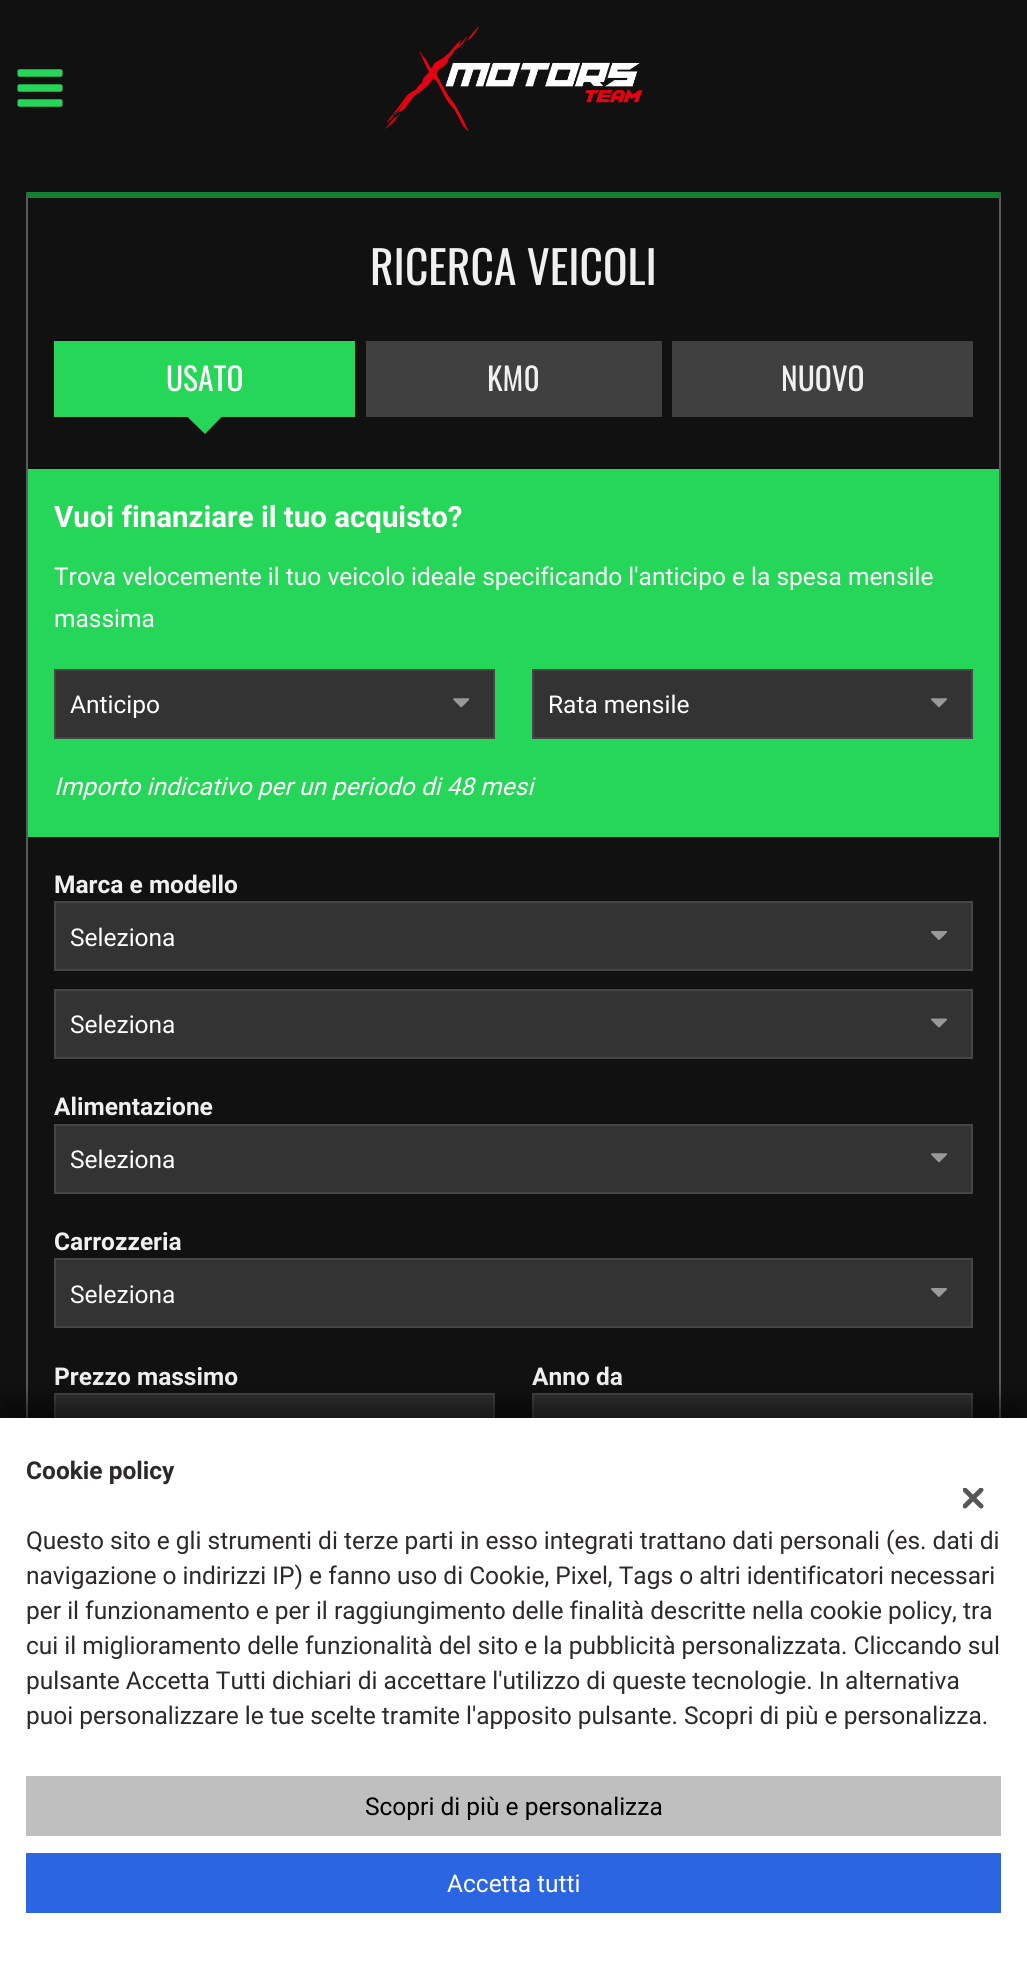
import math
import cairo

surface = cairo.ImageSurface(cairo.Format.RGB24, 1027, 1965)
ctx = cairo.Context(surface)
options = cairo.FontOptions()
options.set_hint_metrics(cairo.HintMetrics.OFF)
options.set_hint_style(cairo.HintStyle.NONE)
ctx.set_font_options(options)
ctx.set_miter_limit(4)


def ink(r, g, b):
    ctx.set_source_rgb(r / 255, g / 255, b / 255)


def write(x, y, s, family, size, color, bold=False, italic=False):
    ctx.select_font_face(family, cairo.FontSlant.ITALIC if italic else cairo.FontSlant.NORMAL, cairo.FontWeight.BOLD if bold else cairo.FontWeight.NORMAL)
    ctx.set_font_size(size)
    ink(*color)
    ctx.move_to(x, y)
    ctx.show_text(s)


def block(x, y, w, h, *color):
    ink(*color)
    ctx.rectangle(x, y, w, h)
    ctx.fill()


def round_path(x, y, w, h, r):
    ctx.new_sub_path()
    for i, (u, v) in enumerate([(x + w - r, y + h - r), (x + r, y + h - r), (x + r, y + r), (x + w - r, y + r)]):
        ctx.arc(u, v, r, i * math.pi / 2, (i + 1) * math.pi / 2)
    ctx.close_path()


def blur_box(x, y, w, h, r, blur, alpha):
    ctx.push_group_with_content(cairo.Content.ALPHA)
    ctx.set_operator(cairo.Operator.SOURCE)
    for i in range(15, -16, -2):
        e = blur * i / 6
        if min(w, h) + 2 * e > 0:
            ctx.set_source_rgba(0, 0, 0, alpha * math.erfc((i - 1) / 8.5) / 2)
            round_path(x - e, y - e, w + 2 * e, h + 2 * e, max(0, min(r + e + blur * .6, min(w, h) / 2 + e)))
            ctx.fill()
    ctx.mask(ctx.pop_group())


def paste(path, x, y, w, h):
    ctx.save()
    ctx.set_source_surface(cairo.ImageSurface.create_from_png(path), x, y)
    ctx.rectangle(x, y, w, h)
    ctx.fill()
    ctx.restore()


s1 = dict(family="Oswald", size=45.5, color=(240, 240, 240))
s2 = dict(family="Oswald", size=31.5, color=(255, 255, 255))
s3 = dict(family="Oswald", size=31.5, color=(240, 240, 240))
s4 = dict(family="Roboto", size=29.4, color=(255, 255, 255), bold=True)
s5 = dict(family="Roboto", size=24.5, color=(255, 255, 255))
s6 = dict(family="Roboto", size=24.5, color=(255, 255, 255), italic=True)
s7 = dict(family="Roboto", size=24.5, color=(240, 240, 240), bold=True)
s8 = dict(family="Roboto", size=24.5, color=(43, 41, 41), bold=True)
s9 = dict(family="Roboto", size=24.5, color=(43, 41, 41))
s10 = dict(family="Roboto", size=24.5, color=(0, 0, 0))

ink(17, 17, 17)
ctx.paint()
paste("pic1.png", 17, 69, 46, 38)
paste("pic2.png", 385, 26, 258, 106)
ink(23, 127, 52)
ctx.new_path()
ctx.move_to(26, 192)
ctx.line_to(1001, 192)
ctx.line_to(999, 198)
ctx.line_to(28, 198)
ctx.close_path()
ctx.fill()
ink(91, 91, 91)
ctx.new_path()
ctx.move_to(1001, 192)
ctx.line_to(1001, 1930)
ctx.line_to(999, 1928)
ctx.line_to(999, 198)
ctx.close_path()
ctx.fill()
ctx.new_path()
ctx.move_to(26, 1930)
ctx.line_to(26, 192)
ctx.line_to(28, 198)
ctx.line_to(28, 1928)
ctx.close_path()
ctx.fill()
write(370, 285, "RICERCA VEICOLI", **s1)
ink(0, 0, 0)
blur_box(54, 343, 301, 75, 0, 1, 1)
block(54, 341, 301, 76, 38, 214, 88)
write(166, 391, "USATO", **s2)
ink(38, 214, 88)
ctx.new_path()
ctx.move_to(187, 416.5)
ctx.line_to(222, 416.5)
ctx.line_to(205, 434)
ctx.close_path()
ctx.fill()
block(366, 341, 296, 76, 64, 64, 64)
write(487, 391, "KM0", **s3)
block(672, 341, 301, 76, 64, 64, 64)
write(781, 391, "NUOVO", **s3)
block(28, 469, 971, 368, 38, 214, 88)
write(54, 527, "Vuoi finanziare il tuo acquisto?", **s4)
write(54, 585, "Trova velocemente il tuo veicolo ideale specificando l'anticipo e la spesa mensile", **s5)
write(54, 627, "massima", **s5)
ink(51, 51, 51)
ctx.rectangle(55, 670, 439, 68)
ctx.fill_preserve()
ink(70, 70, 70)
ctx.stroke()
write(70, 713, "Anticipo", **s5)
paste("pic3.png", 453, 698, 17, 10)
ink(51, 51, 51)
ctx.rectangle(533, 670, 439, 68)
ctx.fill_preserve()
ink(70, 70, 70)
ctx.stroke()
write(548, 713, "Rata mensile", **s5)
paste("pic4.png", 931, 698, 16, 10)
write(54, 795, "Importo indicativo per un periodo di 48 mesi", **s6)
write(54, 893, "Marca e modello", **s7)
ink(51, 51, 51)
ctx.rectangle(55, 902, 917, 68)
ctx.fill_preserve()
ink(70, 70, 70)
ctx.stroke()
write(70, 946, "Seleziona", **s5)
paste("pic5.png", 931, 931, 16, 9)
ink(51, 51, 51)
ctx.rectangle(55, 990, 917, 68)
ctx.fill_preserve()
ink(70, 70, 70)
ctx.stroke()
write(70, 1033, "Seleziona", **s5)
paste("pic6.png", 931, 1018, 16, 10)
write(54, 1115, "Alimentazione", **s7)
ink(51, 51, 51)
ctx.rectangle(55, 1125, 917, 68)
ctx.fill_preserve()
ink(70, 70, 70)
ctx.stroke()
write(70, 1168, "Seleziona", **s5)
paste("pic4.png", 931, 1153, 16, 10)
write(54, 1250, "Carrozzeria", **s7)
ink(51, 51, 51)
ctx.rectangle(55, 1259, 917, 68)
ctx.fill_preserve()
ink(70, 70, 70)
ctx.stroke()
write(70, 1303, "Seleziona", **s5)
paste("pic5.png", 931, 1288, 16, 9)
write(54, 1385, "Prezzo massimo", **s7)
block(56, 1395, 437, 23, 51, 51, 51)
ctx.rectangle(55, 1394, 439, 68)
ink(70, 70, 70)
ctx.stroke()
write(532, 1385, "Anno da", **s7)
block(534, 1395, 437, 23, 51, 51, 51)
ctx.rectangle(533, 1394, 439, 68)
ink(70, 70, 70)
ctx.stroke()
ink(0, 0, 0)
blur_box(0, 1400, 1027, 548, 0, 10.5, 0.5)
block(0, 1418, 1027, 547, 255, 255, 255)
write(26, 1479, "Cookie policy", **s8)
write(26, 1549, "Questo sito e gli strumenti di terze parti in esso integrati trattano dati personali (es. dati di", **s9)
write(26, 1584, "navigazione o indirizzi IP) e fanno uso di Cookie, Pixel, Tags o altri identificatori necessari", **s9)
write(26, 1619, "per il funzionamento e per il raggiungimento delle finalità descritte nella cookie policy, tra", **s9)
write(26, 1654, "cui il miglioramento delle funzionalità del sito e la pubblicità personalizzata. Cliccando sul", **s9)
write(26, 1689, "pulsante Accetta Tutti dichiari di accettare l'utilizzo di queste tecnologie. In alternativa", **s9)
write(26, 1724, "puoi personalizzare le tue scelte tramite l'apposito pulsante. Scopri di più e personalizza.", **s9)
block(26, 1776, 975, 60, 191, 191, 191)
write(365, 1815, "Scopri di più e personalizza", **s10)
block(26, 1853, 975, 60, 44, 101, 225)
write(447, 1892, "Accetta tutti", **s5)
paste("pic7.png", 963, 1488, 21, 21)
surface.write_to_png("screenshot.png")
